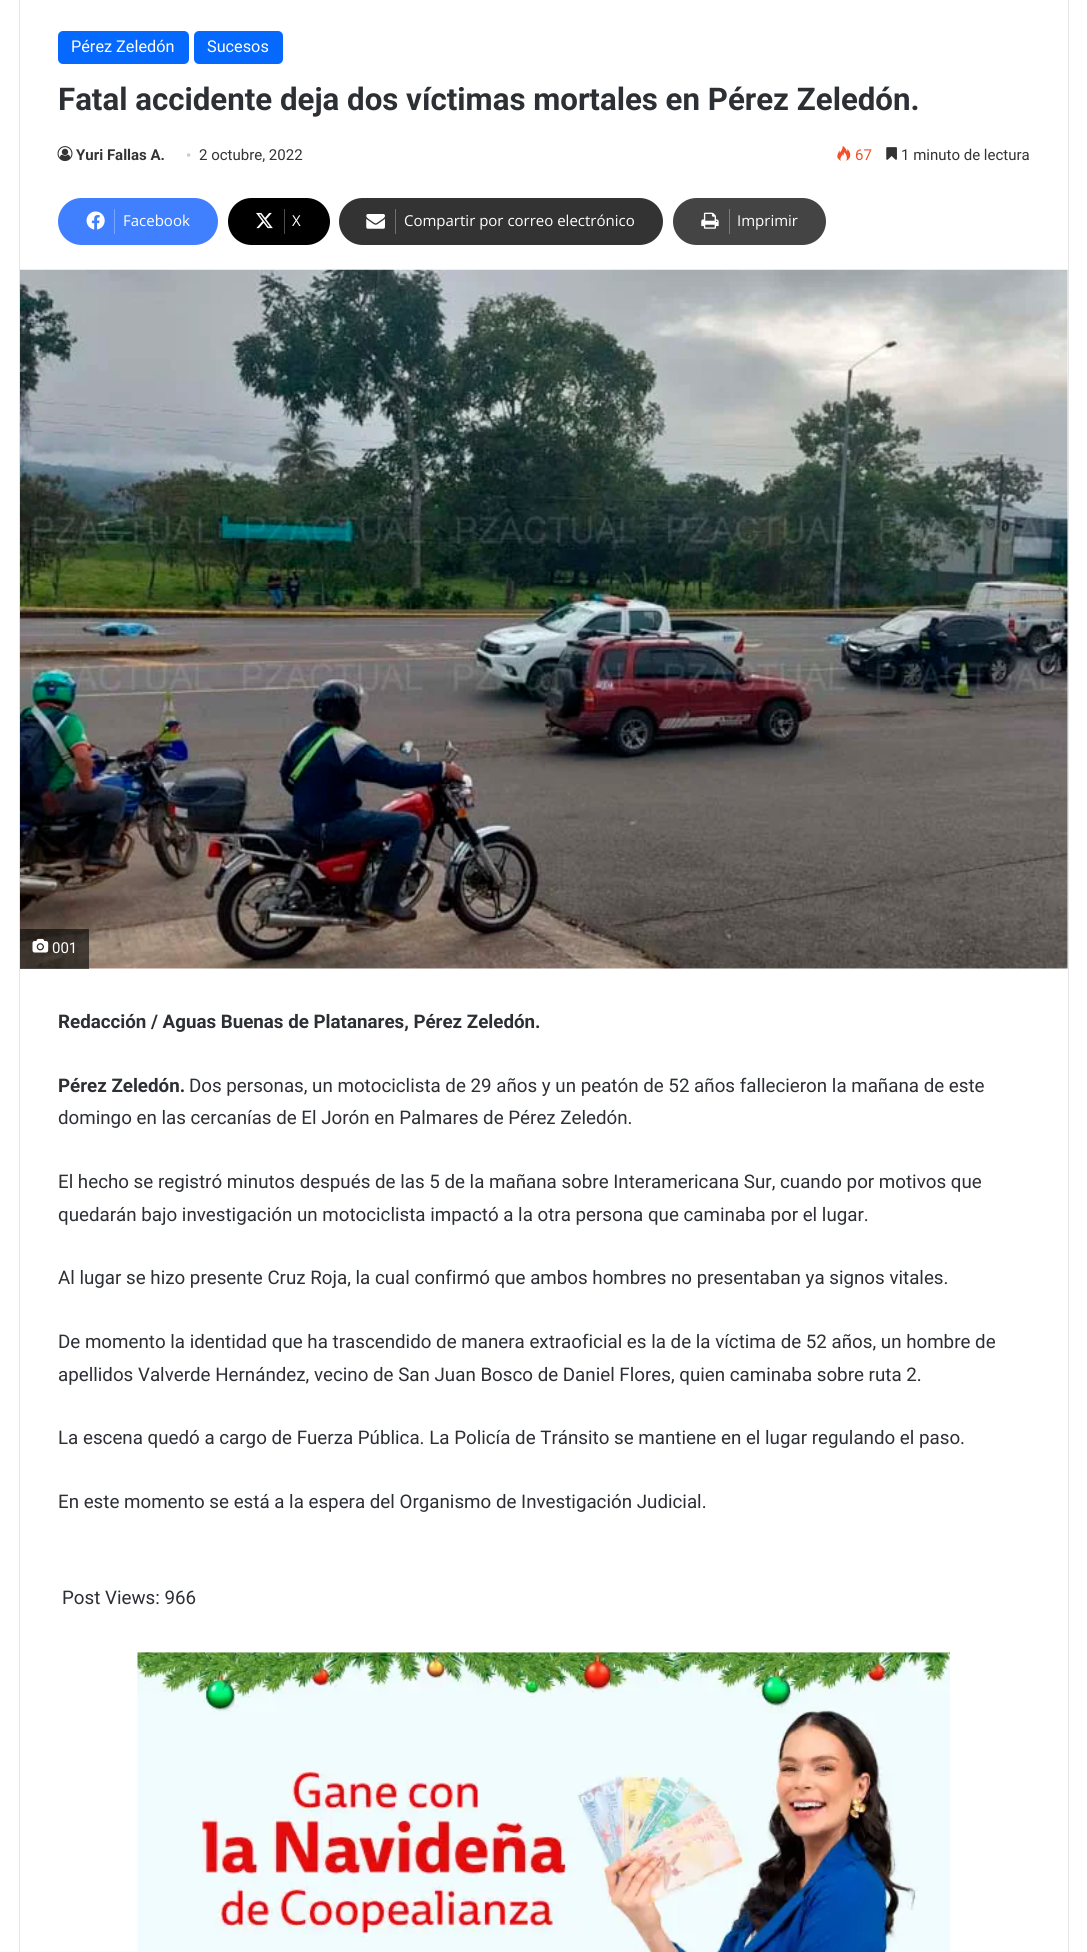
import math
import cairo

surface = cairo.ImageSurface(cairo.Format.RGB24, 1087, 1952)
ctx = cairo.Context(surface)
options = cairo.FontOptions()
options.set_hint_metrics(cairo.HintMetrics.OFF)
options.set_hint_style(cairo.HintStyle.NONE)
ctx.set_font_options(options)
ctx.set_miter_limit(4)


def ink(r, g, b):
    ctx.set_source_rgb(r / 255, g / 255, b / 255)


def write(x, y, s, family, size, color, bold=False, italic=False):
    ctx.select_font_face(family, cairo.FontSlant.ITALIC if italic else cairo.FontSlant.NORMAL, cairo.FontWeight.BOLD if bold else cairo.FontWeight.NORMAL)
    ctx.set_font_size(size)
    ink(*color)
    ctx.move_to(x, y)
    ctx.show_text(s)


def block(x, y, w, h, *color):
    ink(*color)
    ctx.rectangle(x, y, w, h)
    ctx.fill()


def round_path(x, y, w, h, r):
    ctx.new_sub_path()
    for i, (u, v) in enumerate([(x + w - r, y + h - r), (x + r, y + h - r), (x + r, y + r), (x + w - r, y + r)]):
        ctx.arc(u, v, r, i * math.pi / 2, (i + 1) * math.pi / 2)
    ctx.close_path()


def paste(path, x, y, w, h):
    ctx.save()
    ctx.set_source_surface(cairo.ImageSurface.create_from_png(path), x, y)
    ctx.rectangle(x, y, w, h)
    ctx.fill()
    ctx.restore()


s1 = dict(family="Roboto", size=16.25, color=(255, 255, 255))
s2 = dict(family="Roboto", size=31.25, color=(44, 47, 52), bold=True)
s3 = dict(family="Roboto", size=15, color=(51, 51, 51), bold=True)
s4 = dict(family="Liberation Serif", size=15, color=(204, 204, 204))
s5 = dict(family="Roboto", size=15, color=(51, 51, 51))
s6 = dict(family="Roboto", size=15, color=(243, 80, 42))
s7 = dict(family="Open Sans", size=15, color=(255, 255, 255))
s8 = dict(family="Roboto", size=15, color=(255, 255, 255))
s9 = dict(family="Roboto", size=18.75, color=(44, 47, 52), bold=True)
s10 = dict(family="Roboto", size=18.75, color=(44, 47, 52))

ink(255, 255, 255)
ctx.paint()
ctx.rectangle(19.5, -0.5, 1049, 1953)
ink(230, 230, 230)
ctx.set_line_width(1)
ctx.stroke()
ink(6, 105, 255)
round_path(58, 31, 131, 33, 5)
ctx.fill()
write(71, 52, "Pérez Zeledón", **s1)
ink(6, 105, 255)
round_path(194, 31, 89, 33, 5)
ctx.fill()
write(207, 52, "Sucesos", **s1)
write(58, 110, "Fatal accidente deja dos víctimas mortales en Pérez Zeledón.", **s2)
paste("pic1.png", 57, 146, 16, 16)
write(76, 160, "Yuri Fallas A.", **s3)
write(186, 160, "•", **s4)
write(199, 160, "2 octubre, 2022", **s5)
paste("pic2.png", 837, 146, 14, 15)
write(855, 160, "67", **s6)
paste("pic3.png", 886, 147, 11, 13)
write(901, 160, "1 minuto de lectura", **s5)
ink(64, 128, 255)
round_path(58, 198, 160, 47, 23.5)
ctx.fill()
paste("pic4.png", 86, 211, 19, 19)
block(114, 209, 1, 25, 121, 166, 255)
write(123, 226, "Facebook", **s7)
ink(0, 0, 0)
round_path(228, 198, 102, 47, 23.5)
ctx.fill()
paste("pic5.png", 256, 212, 17, 17)
block(284, 209, 1, 25, 77, 77, 77)
write(292, 226, "X", **s7)
ink(51, 51, 51)
round_path(339, 198, 324, 47, 23.5)
ctx.fill()
paste("pic6.png", 366, 214, 19, 15)
block(395, 209, 1, 25, 112, 112, 112)
write(404, 226, "Compartir por correo electrónico", **s7)
ink(68, 68, 68)
round_path(673, 198, 153, 47, 23.5)
ctx.fill()
paste("pic7.png", 701, 212, 18, 17)
block(729, 209, 1, 25, 124, 124, 124)
write(737, 226, "Imprimir", **s7)
paste("pic8.png", 20, 269, 1048, 700)
ctx.set_source_rgba(0, 0, 0, 0.6)
ctx.rectangle(20, 929, 69, 40)
ctx.fill()
paste("pic9.png", 32, 938, 17, 15)
write(52, 953, "001", **s8)
write(58, 1028, "Redacción / Aguas Buenas de Platanares, Pérez Zeledón.", **s9)
write(58, 1092, "Pérez Zeledón.", **s9)
write(189, 1092, "Dos personas, un motociclista de 29 años y un peatón de 52 años fallecieron la mañana de este", **s10)
write(58, 1124, "domingo en las cercanías de El Jorón en Palmares de Pérez Zeledón.", **s10)
write(58, 1188, "El hecho se registró minutos después de las 5 de la mañana sobre Interamericana Sur, cuando por motivos que", **s10)
write(58, 1221, "quedarán bajo investigación un motociclista impactó a la otra persona que caminaba por el lugar.", **s10)
write(58, 1284, "Al lugar se hizo presente Cruz Roja, la cual confirmó que ambos hombres no presentaban ya signos vitales.", **s10)
write(58, 1348, "De momento la identidad que ha trascendido de manera extraoficial es la de la víctima de 52 años, un hombre de", **s10)
write(58, 1381, "apellidos Valverde Hernández, vecino de San Juan Bosco de Daniel Flores, quien caminaba sobre ruta 2.", **s10)
write(58, 1444, "La escena quedó a cargo de Fuerza Pública. La Policía de Tránsito se mantiene en el lugar regulando el paso.", **s10)
write(58, 1508, "En este momento se está a la espera del Organismo de Investigación Judicial.", **s10)
write(62, 1604, "Post Views: 966", **s10)
paste("pic10.png", 137, 1652, 813, 300)
surface.write_to_png("screenshot.png")
